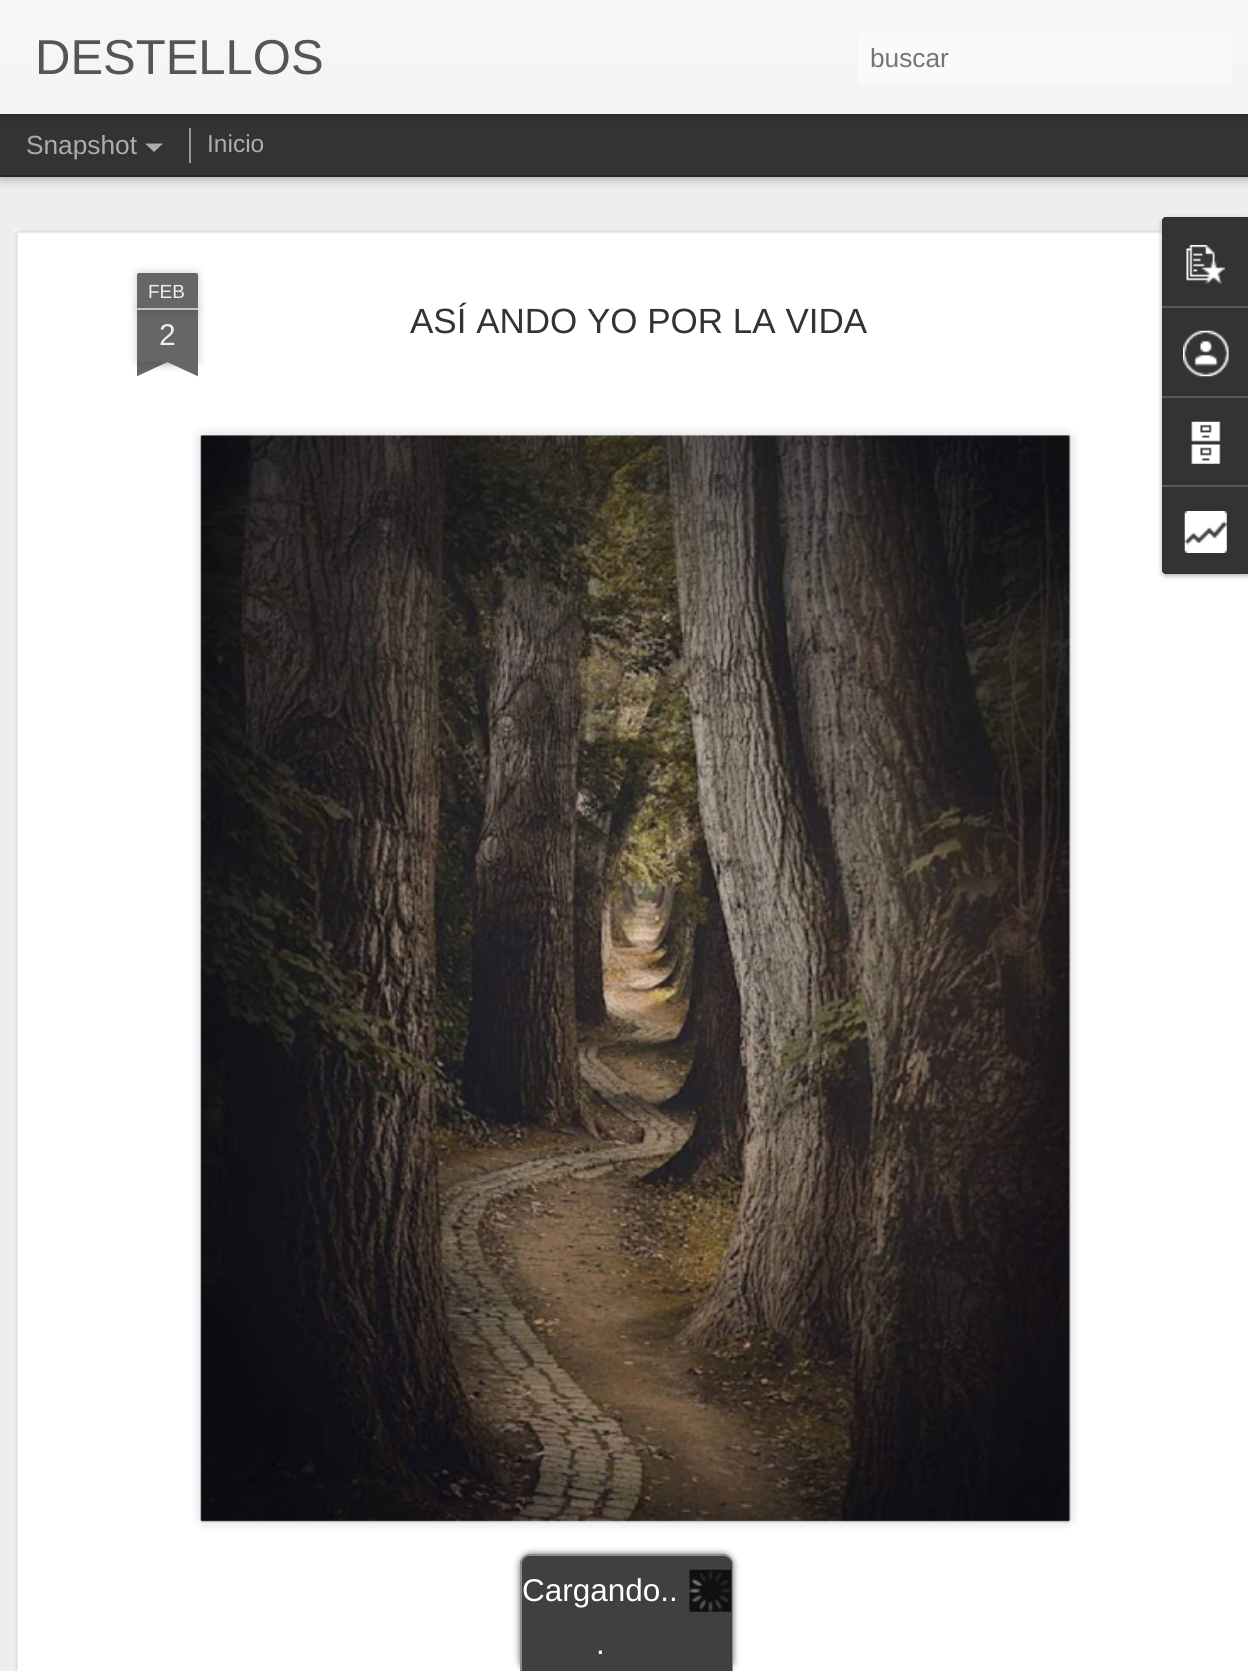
import math
import cairo

surface = cairo.ImageSurface(cairo.Format.RGB24, 1248, 1671)
ctx = cairo.Context(surface)
options = cairo.FontOptions()
options.set_hint_metrics(cairo.HintMetrics.OFF)
options.set_hint_style(cairo.HintStyle.NONE)
ctx.set_font_options(options)
ctx.set_miter_limit(4)


def ink(r, g, b):
    ctx.set_source_rgb(r / 255, g / 255, b / 255)


def write(x, y, s, family, size, color, bold=False, italic=False):
    ctx.select_font_face(family, cairo.FontSlant.ITALIC if italic else cairo.FontSlant.NORMAL, cairo.FontWeight.BOLD if bold else cairo.FontWeight.NORMAL)
    ctx.set_font_size(size)
    ink(*color)
    ctx.move_to(x, y)
    ctx.show_text(s)


def block(x, y, w, h, *color):
    ink(*color)
    ctx.rectangle(x, y, w, h)
    ctx.fill()


def round_path(x, y, w, h, r):
    ctx.new_sub_path()
    for i, (u, v) in enumerate([(x + w - r, y + h - r), (x + r, y + h - r), (x + r, y + r), (x + w - r, y + r)]):
        ctx.arc(u, v, r, i * math.pi / 2, (i + 1) * math.pi / 2)
    ctx.close_path()


def blur_box(x, y, w, h, r, blur, alpha):
    ctx.push_group_with_content(cairo.Content.ALPHA)
    ctx.set_operator(cairo.Operator.SOURCE)
    for i in range(15, -16, -2):
        e = blur * i / 6
        if min(w, h) + 2 * e > 0:
            ctx.set_source_rgba(0, 0, 0, alpha * math.erfc((i - 1) / 8.5) / 2)
            round_path(x - e, y - e, w + 2 * e, h + 2 * e, max(0, min(r + e + blur * .6, min(w, h) / 2 + e)))
            ctx.fill()
    ctx.mask(ctx.pop_group())


def paste(path, x, y, w, h):
    ctx.save()
    ctx.set_source_surface(cairo.ImageSurface.create_from_png(path), x, y)
    ctx.rectangle(x, y, w, h)
    ctx.fill()
    ctx.restore()


s1 = dict(family="Liberation Sans", size=49, color=(85, 85, 85))
s2 = dict(family="Liberation Sans", size=26.25, color=(117, 117, 117))
s3 = dict(family="Liberation Sans", size=26.25, color=(173, 173, 173))
s4 = dict(family="Liberation Sans", size=24.5, color=(173, 173, 173))
s5 = dict(family="Liberation Sans", size=19, color=(238, 238, 238))
s6 = dict(family="Liberation Sans", size=30, color=(238, 238, 238))
s7 = dict(family="Liberation Sans", size=35, color=(51, 51, 51))
s8 = dict(family="Liberation Sans", size=31.5, color=(255, 255, 255))

ink(51, 51, 51)
ctx.paint()
block(0, 177, 1248, 1494, 238, 238, 238)
ink(0, 0, 0)
blur_box(0, 114, 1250, 61, 0, 7, 0.5)
block(0, 114, 1248, 61, 51, 51, 51)
block(189, 128, 2, 35, 153, 153, 153)
ink(0, 0, 0)
blur_box(0, 0, 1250, 114, 0, 4.5, 0.3)
gradient = cairo.LinearGradient(0, 0, 0, 114)
gradient.add_color_stop_rgba(0, 0.969, 0.969, 0.969, 1)
gradient.add_color_stop_rgba(1, 0.957, 0.957, 0.957, 1)
ctx.set_source(gradient)
ctx.rectangle(0, 0, 1248, 114)
ctx.fill()
write(35, 74, "DESTELLOS", **s1)
ink(250, 250, 250)
round_path(858, 32, 374, 52, 5)
ctx.fill()
write(870, 67, "buscar", **s2)
write(26, 154, "Snapshot", **s3)
ctx.new_path()
ctx.move_to(145, 143.5)
ctx.line_to(163, 143.5)
ctx.line_to(154, 152)
ctx.close_path()
ctx.fill()
write(207, 152, "Inicio", **s4)
block(14, 229, 1234, 1442, 255, 255, 255)
paste("pic1.png", 14, 229, 1148, 1442)
ink(0, 0, 0)
blur_box(137, 310, 61, 52, 0, 4.5, 0.2)
block(137, 310, 61, 52, 102, 102, 102)
ink(0, 0, 0)
blur_box(137, 273, 61, 37, 2, 4.5, 0.2)
ink(102, 102, 102)
ctx.new_path()
ctx.move_to(139, 273)
ctx.line_to(196, 273)
ctx.curve_to(197, 273, 198, 274, 198, 275)
ctx.line_to(198, 310)
ctx.line_to(137, 310)
ctx.line_to(137, 275)
ctx.curve_to(137, 274, 138, 273, 139, 273)
ctx.close_path()
ctx.fill()
block(137, 308, 61, 2, 194, 194, 194)
write(148, 298, "FEB", **s5)
write(159, 345, "2", **s6)
ctx.save()
ctx.rectangle(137, 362, 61, 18)
ctx.clip()
ink(0, 0, 0)
blur_box(121, 345, 87, 17, 0, 4.5, 0.2)
ctx.restore()
ctx.save()
ctx.rectangle(137, 362, 61, 18)
ctx.clip()
ink(102, 102, 102)
ctx.new_path()
ctx.move_to(121, 364)
ctx.line_to(200, 327)
ctx.line_to(208, 343)
ctx.line_to(129, 380)
ctx.close_path()
ctx.fill()
ctx.restore()
ctx.save()
ctx.rectangle(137, 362, 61, 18)
ctx.clip()
ink(0, 0, 0)
blur_box(126, 345, 88, 17, 0, 4.5, 0.2)
ctx.restore()
ctx.save()
ctx.rectangle(137, 362, 61, 18)
ctx.clip()
ink(102, 102, 102)
ctx.new_path()
ctx.move_to(134, 327)
ctx.line_to(213, 364)
ctx.line_to(206, 380)
ctx.line_to(126, 343)
ctx.close_path()
ctx.fill()
ctx.restore()
write(410, 333, "ASÍ ANDO YO POR LA VIDA", **s7)
paste("pic2.png", 193, 427, 885, 1102)
paste("pic3.png", 200, 435, 871, 1088)
ink(0, 0, 0)
blur_box(1162, 219, 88, 357, 4, 2.5, 0.3)
ink(51, 51, 51)
ctx.new_path()
ctx.move_to(1166, 217)
ctx.line_to(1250, 217)
ctx.line_to(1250, 574)
ctx.line_to(1166, 574)
ctx.curve_to(1164, 574, 1162, 572, 1162, 570)
ctx.line_to(1162, 221)
ctx.curve_to(1162, 219, 1164, 217, 1166, 217)
ctx.close_path()
ctx.fill()
ctx.new_path()
ctx.move_to(1166, 217)
ctx.line_to(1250, 217)
ctx.line_to(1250, 306)
ctx.line_to(1162, 306)
ctx.line_to(1162, 221)
ctx.curve_to(1162, 219, 1164, 217, 1166, 217)
ctx.close_path()
ctx.fill()
paste("pic4.png", 1186, 245, 39, 39)
block(1162, 306, 86, 2, 88, 88, 88)
paste("pic5.png", 1183, 330, 46, 47)
block(1162, 396, 86, 2, 88, 88, 88)
paste("pic6.png", 1191, 421, 30, 43)
ink(51, 51, 51)
ctx.new_path()
ctx.move_to(1162, 485)
ctx.line_to(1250, 485)
ctx.line_to(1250, 574)
ctx.line_to(1166, 574)
ctx.curve_to(1164, 574, 1162, 572, 1162, 570)
ctx.close_path()
ctx.fill()
block(1162, 485, 86, 2, 88, 88, 88)
paste("pic7.png", 1184, 511, 43, 42)
ink(102, 102, 102)
blur_box(520, 1554, 213, 117, 11, 3.5, 1)
ink(64, 64, 64)
ctx.new_path()
ctx.move_to(531, 1554)
ctx.line_to(722, 1554)
ctx.curve_to(728, 1554, 733, 1559, 733, 1565)
ctx.line_to(733, 1671)
ctx.line_to(520, 1671)
ctx.line_to(520, 1565)
ctx.curve_to(520, 1559, 525, 1554, 531, 1554)
ctx.close_path()
ctx.fill()
ink(140, 140, 140)
ctx.set_fill_rule(cairo.FillRule.EVEN_ODD)
ctx.new_path()
ctx.move_to(530, 1554)
ctx.line_to(723, 1554)
ctx.curve_to(729, 1554, 733, 1559, 733, 1564)
ctx.line_to(733, 1671)
ctx.line_to(520, 1671)
ctx.line_to(520, 1564)
ctx.curve_to(520, 1559, 524, 1554, 530, 1554)
ctx.close_path()
ctx.move_to(530, 1556)
ctx.line_to(723, 1556)
ctx.curve_to(728, 1556, 732, 1560, 732, 1564)
ctx.line_to(732, 1671)
ctx.line_to(522, 1671)
ctx.line_to(522, 1564)
ctx.curve_to(522, 1560, 525, 1556, 530, 1556)
ctx.close_path()
ctx.fill()
paste("pic8.png", 689, 1569, 43, 43)
write(522, 1601, "Cargando..", **s8)
write(596, 1654, ".", **s8)
surface.write_to_png("screenshot.png")
